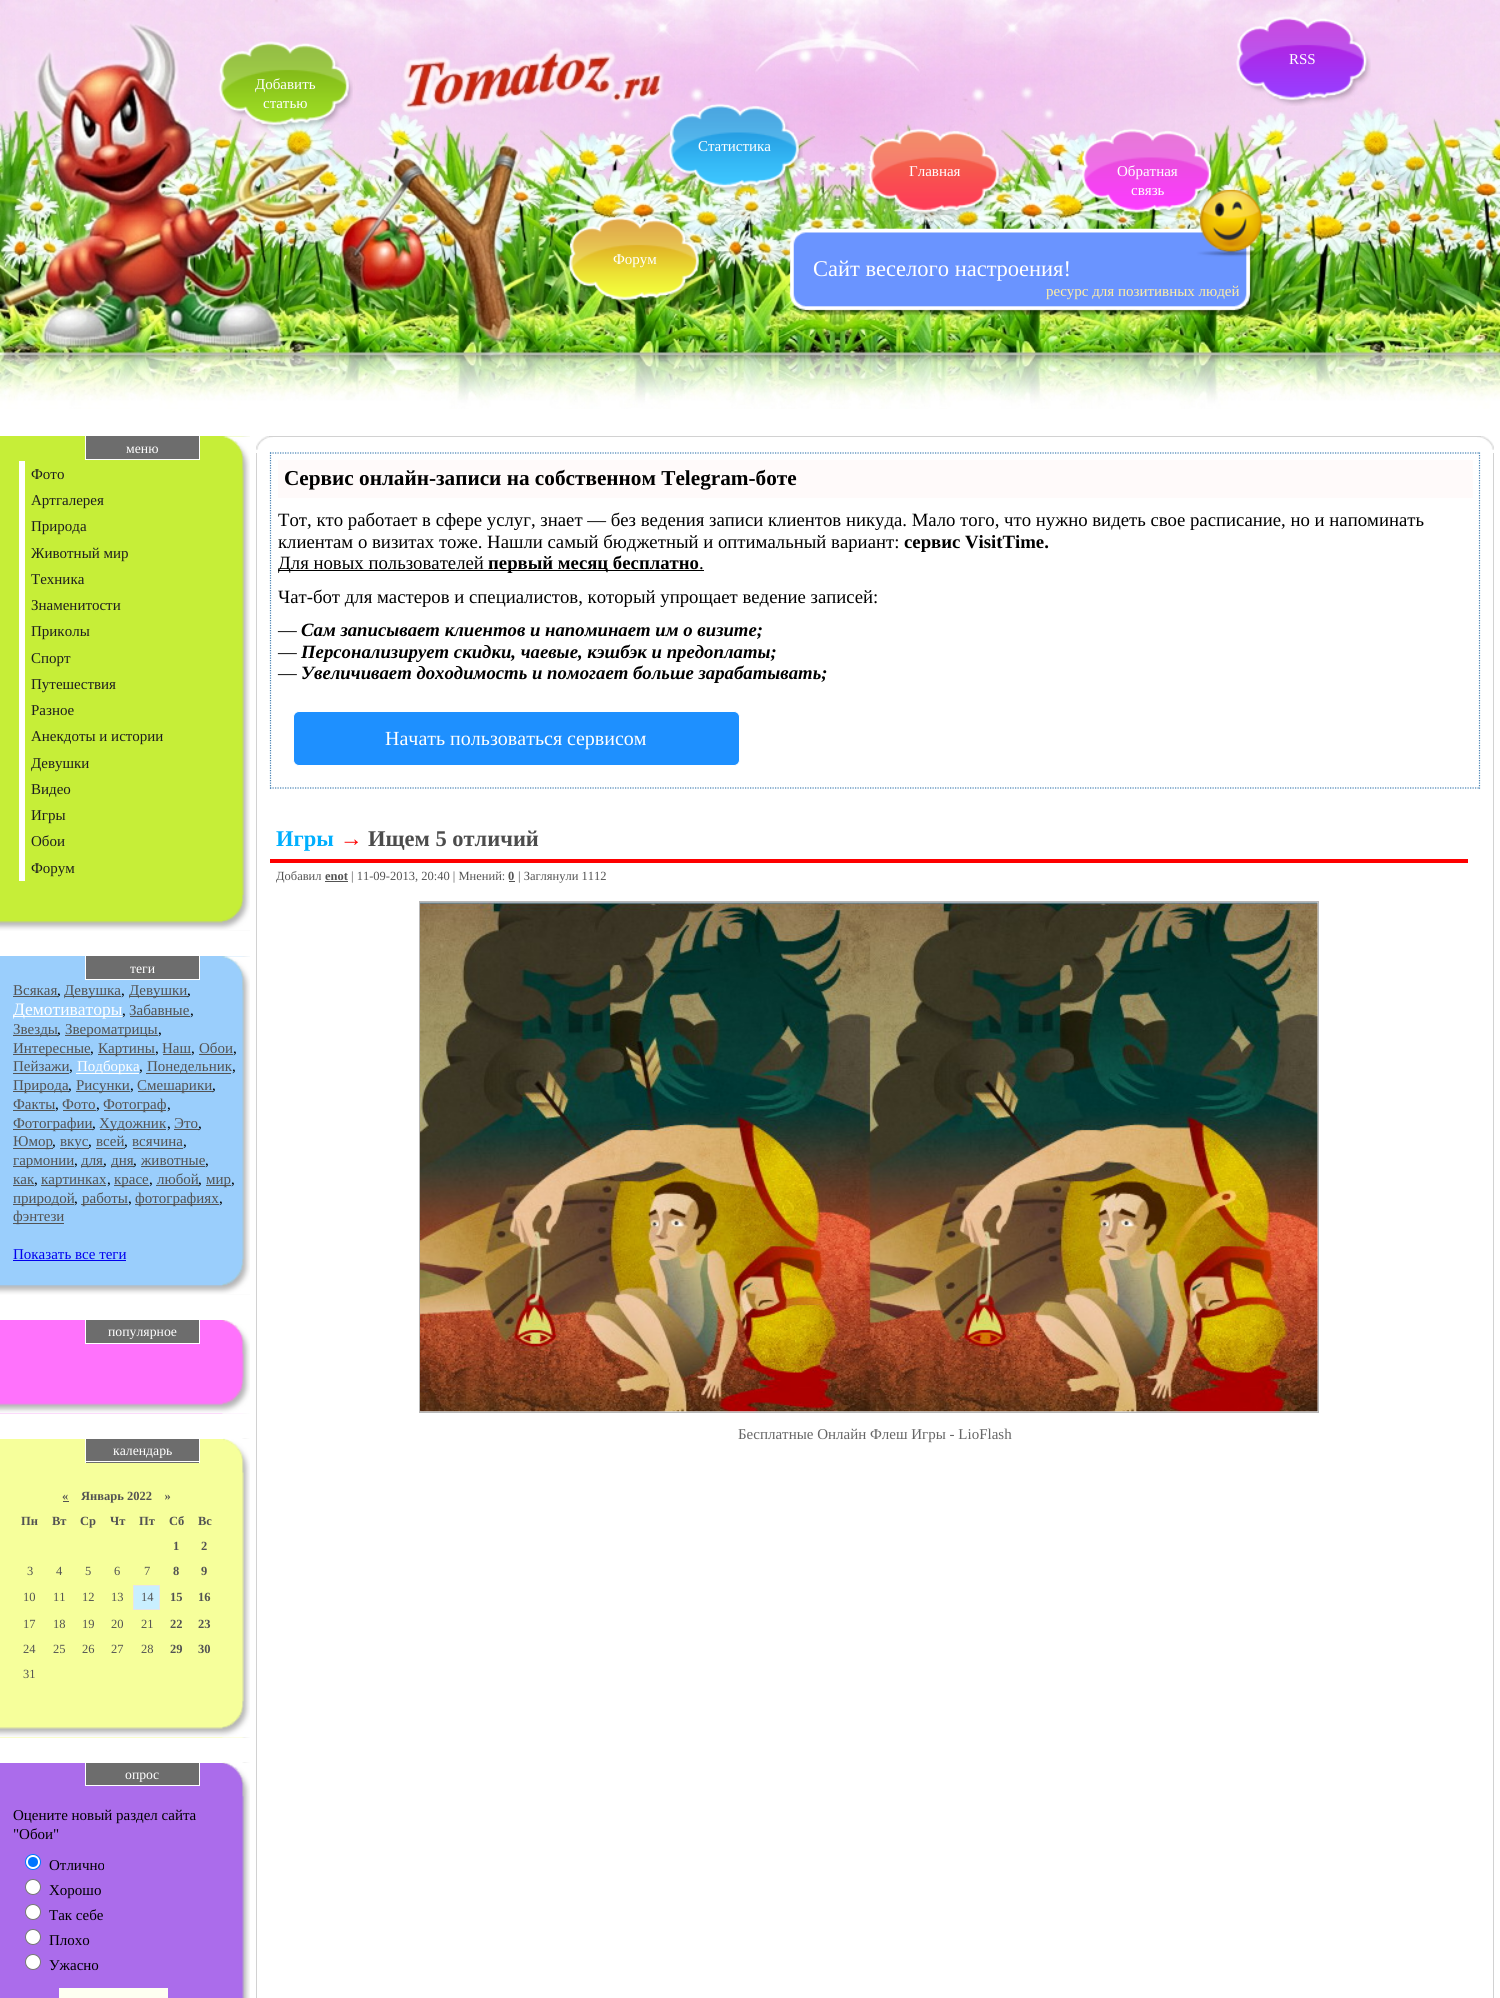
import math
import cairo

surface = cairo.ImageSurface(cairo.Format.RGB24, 1500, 1998)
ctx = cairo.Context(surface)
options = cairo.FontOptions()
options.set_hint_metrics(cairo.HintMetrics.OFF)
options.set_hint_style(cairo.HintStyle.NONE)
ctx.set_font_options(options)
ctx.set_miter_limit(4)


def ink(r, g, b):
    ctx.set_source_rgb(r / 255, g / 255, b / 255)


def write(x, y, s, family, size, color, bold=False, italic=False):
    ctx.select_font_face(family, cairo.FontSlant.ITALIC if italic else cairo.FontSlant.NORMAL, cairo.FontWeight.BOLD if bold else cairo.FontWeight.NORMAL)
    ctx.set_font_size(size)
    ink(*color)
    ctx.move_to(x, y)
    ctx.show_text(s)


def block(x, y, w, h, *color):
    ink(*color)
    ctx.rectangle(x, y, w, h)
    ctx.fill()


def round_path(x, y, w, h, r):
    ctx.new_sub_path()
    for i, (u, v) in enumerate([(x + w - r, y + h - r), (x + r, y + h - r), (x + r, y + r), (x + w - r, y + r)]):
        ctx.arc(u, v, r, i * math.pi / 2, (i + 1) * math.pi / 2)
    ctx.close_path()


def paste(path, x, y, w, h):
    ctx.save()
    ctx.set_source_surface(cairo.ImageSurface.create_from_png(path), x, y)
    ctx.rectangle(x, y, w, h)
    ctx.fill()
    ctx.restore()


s1 = dict(family="Liberation Serif", size=15, color=(255, 255, 255))
s2 = dict(family="Liberation Serif", size=22.5, color=(255, 255, 255))
s3 = dict(family="Liberation Serif", size=15, color=(255, 239, 165))
s4 = dict(family="Liberation Serif", size=13.75, color=(255, 255, 255))
s5 = dict(family="Liberation Serif", size=15, color=(30, 30, 30))
s6 = dict(family="Liberation Serif", size=15, color=(83, 83, 83))
s7 = dict(family="Liberation Serif", size=15, color=(0, 0, 0))
s8 = dict(family="Liberation Serif", size=17.5, color=(255, 255, 255))
s9 = dict(family="Liberation Serif", size=15, color=(0, 0, 238))
s10 = dict(family="Liberation Serif", size=12.5, color=(83, 83, 83), bold=True)
s11 = dict(family="Liberation Serif", size=12.5, color=(83, 83, 83))
s12 = dict(family="Liberation Serif", size=21.25, color=(0, 0, 0), bold=True)
s13 = dict(family="Liberation Serif", size=18.75, color=(0, 0, 0))
s14 = dict(family="Liberation Serif", size=18.75, color=(0, 0, 0), bold=True)
s15 = dict(family="Liberation Serif", size=18.75, color=(0, 0, 0), bold=True, italic=True)
s16 = dict(family="Liberation Serif", size=20, color=(255, 255, 255))
s17 = dict(family="Liberation Serif", size=22.5, color=(0, 175, 254), bold=True)
s18 = dict(family="Liberation Serif", size=22.5, color=(254, 0, 0), bold=True)
s19 = dict(family="Liberation Serif", size=22.5, color=(76, 76, 76), bold=True)
s20 = dict(family="Liberation Serif", size=15, color=(102, 102, 102))

ink(255, 255, 255)
ctx.paint()
paste("pic1.png", 0, 0, 1500, 409)
paste("pic2.png", 1236, 16, 135, 90)
write(1289, 64, "RSS", **s1)
paste("pic3.png", 218, 41, 135, 90)
write(255, 89, "Добавить", **s1)
write(263, 108, "статью", **s1)
paste("pic8.png", 789, 189, 474, 126)
paste("pic4.png", 668, 103, 135, 90)
write(698, 151, "Статистика", **s1)
paste("pic5.png", 868, 128, 135, 90)
write(909, 176, "Главная", **s1)
paste("pic6.png", 1081, 128, 135, 90)
write(1117, 176, "Обратная", **s1)
write(1131, 195, "связь", **s1)
paste("pic7.png", 568, 216, 135, 90)
write(613, 264, "Форум", **s1)
write(813, 276, "Сайт веселого настроения!", **s2)
write(1046, 296, "ресурс для позитивных людей", **s3)
block(0, 436, 250, 487, 198, 238, 56)
paste("pic9.png", 242, 436, 8, 471)
paste("pic10.png", 223, 436, 27, 34)
paste("pic11.png", 0, 921, 250, 10)
paste("pic12.png", 222, 895, 28, 35)
block(86, 436, 113, 23, 109, 109, 109)
block(199, 436, 1, 24, 255, 255, 255)
block(85, 459, 115, 1, 255, 255, 255)
block(85, 436, 1, 24, 255, 255, 255)
write(126, 453, "меню", **s4)
block(19, 461, 6, 420, 255, 255, 255)
write(31, 479, "Фото", **s5)
write(31, 505, "Артгалерея", **s5)
write(31, 531, "Природа", **s5)
write(31, 558, "Животный мир", **s5)
write(31, 584, "Техника", **s5)
write(31, 610, "Знаменитости", **s5)
write(31, 636, "Приколы", **s5)
write(31, 663, "Спорт", **s5)
write(31, 689, "Путешествия", **s5)
write(31, 715, "Разное", **s5)
write(31, 741, "Анекдоты и истории", **s5)
write(31, 768, "Девушки", **s5)
write(31, 794, "Видео", **s5)
write(31, 820, "Игры", **s5)
write(31, 846, "Обои", **s5)
write(31, 873, "Форум", **s5)
block(0, 956, 250, 331, 154, 206, 252)
paste("pic13.png", 242, 956, 8, 315)
paste("pic14.png", 222, 956, 28, 34)
paste("pic15.png", 0, 1285, 250, 10)
paste("pic16.png", 222, 1259, 28, 35)
block(86, 956, 113, 23, 109, 109, 109)
block(199, 956, 1, 24, 255, 255, 255)
block(85, 979, 115, 1, 255, 255, 255)
block(85, 956, 1, 24, 255, 255, 255)
write(130, 973, "теги", **s4)
write(13, 995, "Всякая", **s6)
block(13, 996, 45, 1, 83, 83, 83)
write(57, 995, ",", **s7)
block(65, 996, 56, 1, 83, 83, 83)
write(64, 995, "Девушка", **s6)
write(121, 995, ",", **s7)
block(129, 996, 59, 1, 83, 83, 83)
write(129, 995, "Девушки", **s6)
write(187, 995, ",", **s7)
block(13, 1016, 110, 1, 255, 255, 255)
write(13, 1015, "Демотиваторы", **s8)
write(122, 1015, ",", **s7)
write(129, 1015, "Забавные", **s6)
block(130, 1016, 60, 1, 83, 83, 83)
write(190, 1015, ",", **s7)
block(13, 1035, 45, 1, 83, 83, 83)
write(13, 1034, "Звезды", **s6)
write(57, 1034, ",", **s7)
block(65, 1035, 93, 1, 83, 83, 83)
write(65, 1034, "Звероматрицы", **s6)
write(158, 1034, ",", **s7)
block(13, 1054, 77, 1, 83, 83, 83)
write(13, 1053, "Интересные", **s6)
write(90, 1053, ",", **s7)
block(98, 1054, 57, 1, 83, 83, 83)
write(98, 1053, "Картины", **s6)
write(155, 1053, ",", **s7)
write(162, 1053, "Наш", **s6)
block(163, 1054, 28, 1, 83, 83, 83)
write(191, 1053, ",", **s7)
write(199, 1053, "Обои", **s6)
block(199, 1054, 34, 1, 83, 83, 83)
write(233, 1053, ",", **s7)
write(13, 1071, "Пейзажи", **s6)
block(13, 1073, 56, 1, 83, 83, 83)
write(69, 1071, ",", **s7)
block(76, 1073, 63, 1, 255, 255, 255)
write(77, 1071, "Подборка", **s1)
write(139, 1071, ",", **s7)
block(146, 1073, 85, 1, 83, 83, 83)
write(147, 1071, "Понедельник", **s6)
write(232, 1071, ",", **s7)
block(13, 1091, 56, 1, 83, 83, 83)
write(13, 1090, "Природа", **s6)
write(68, 1090, ",", **s7)
block(76, 1091, 54, 1, 83, 83, 83)
write(76, 1090, "Рисунки", **s6)
write(130, 1090, ",", **s7)
block(138, 1091, 75, 1, 83, 83, 83)
write(137, 1090, "Смешарики", **s6)
write(212, 1090, ",", **s7)
write(13, 1109, "Факты", **s6)
block(13, 1110, 42, 1, 83, 83, 83)
write(55, 1109, ",", **s7)
write(62, 1109, "Фото", **s6)
block(63, 1110, 33, 1, 83, 83, 83)
write(96, 1109, ",", **s7)
block(104, 1110, 62, 1, 83, 83, 83)
write(103, 1109, "Фотограф", **s6)
write(167, 1109, ",", **s7)
block(13, 1129, 80, 1, 83, 83, 83)
write(13, 1128, "Фотографии", **s6)
write(92, 1128, ",", **s7)
block(100, 1129, 66, 1, 83, 83, 83)
write(99, 1128, "Художник", **s6)
write(167, 1128, ",", **s7)
write(174, 1128, "Это", **s6)
block(174, 1129, 25, 1, 83, 83, 83)
write(198, 1128, ",", **s7)
block(13, 1148, 40, 1, 83, 83, 83)
write(13, 1146, "Юмор", **s6)
write(52, 1146, ",", **s7)
block(60, 1148, 29, 1, 83, 83, 83)
write(60, 1146, "вкус", **s6)
write(88, 1146, ",", **s7)
write(96, 1146, "всей", **s6)
block(96, 1148, 29, 1, 83, 83, 83)
write(124, 1146, ",", **s7)
write(132, 1146, "всячина", **s6)
block(133, 1148, 50, 1, 83, 83, 83)
write(183, 1146, ",", **s7)
block(13, 1166, 61, 1, 83, 83, 83)
write(13, 1165, "гармонии", **s6)
write(74, 1165, ",", **s7)
block(81, 1166, 23, 1, 83, 83, 83)
write(81, 1165, "для", **s6)
write(103, 1165, ",", **s7)
block(111, 1166, 23, 1, 83, 83, 83)
write(111, 1165, "дня", **s6)
write(133, 1165, ",", **s7)
write(141, 1165, "животные", **s6)
block(141, 1166, 64, 1, 83, 83, 83)
write(205, 1165, ",", **s7)
write(13, 1184, "как", **s6)
block(13, 1185, 21, 1, 83, 83, 83)
write(34, 1184, ",", **s7)
block(41, 1185, 65, 1, 83, 83, 83)
write(41, 1184, "картинках", **s6)
write(107, 1184, ",", **s7)
block(114, 1185, 35, 1, 83, 83, 83)
write(114, 1184, "красе", **s6)
write(149, 1184, ",", **s7)
write(157, 1184, "любой", **s6)
block(156, 1185, 43, 1, 83, 83, 83)
write(198, 1184, ",", **s7)
block(206, 1185, 25, 1, 83, 83, 83)
write(206, 1184, "мир", **s6)
write(231, 1184, ",", **s7)
block(13, 1204, 61, 1, 83, 83, 83)
write(13, 1203, "природой", **s6)
write(74, 1203, ",", **s7)
block(81, 1204, 47, 1, 83, 83, 83)
write(82, 1203, "работы", **s6)
write(128, 1203, ",", **s7)
block(135, 1204, 84, 1, 83, 83, 83)
write(135, 1203, "фотографиях", **s6)
write(219, 1203, ",", **s7)
block(13, 1223, 51, 1, 83, 83, 83)
write(13, 1221, "фэнтези", **s6)
write(13, 1259, "Показать все теги", **s9)
block(13, 1260, 113, 1, 0, 0, 238)
block(0, 1320, 244, 94, 255, 114, 252)
paste("pic17.png", 242, 1334, 8, 80)
paste("pic18.png", 222, 1320, 28, 34)
paste("pic19.png", 0, 1403, 250, 11)
paste("pic20.png", 222, 1377, 28, 37)
block(86, 1320, 113, 23, 109, 109, 109)
block(199, 1320, 1, 24, 255, 255, 255)
block(85, 1343, 115, 1, 255, 255, 255)
block(85, 1320, 1, 24, 255, 255, 255)
write(108, 1336, "популярное", **s4)
block(0, 1439, 244, 299, 246, 255, 155)
paste("pic21.png", 242, 1438, 8, 300)
paste("pic22.png", 223, 1438, 27, 35)
paste("pic23.png", 0, 1727, 250, 11)
paste("pic24.png", 222, 1701, 28, 37)
block(86, 1439, 113, 24, 109, 109, 109)
block(199, 1439, 1, 24, 255, 255, 255)
block(85, 1461, 115, 1, 255, 255, 255)
block(85, 1439, 1, 24, 255, 255, 255)
write(113, 1455, "календарь", **s4)
write(62, 1500, "«", **s10)
block(63, 1501, 6, 1, 83, 83, 83)
write(81, 1500, "Январь 2022    »", **s10)
write(21, 1525, "Пн", **s10)
write(52, 1525, "Вт", **s10)
write(80, 1525, "Ср", **s10)
write(110, 1525, "Чт", **s10)
write(139, 1525, "Пт", **s10)
write(169, 1525, "Сб", **s10)
write(198, 1525, "Вс", **s10)
write(173, 1550, "1", **s10)
write(201, 1550, "2", **s10)
write(27, 1575, "3", **s11)
write(56, 1575, "4", **s11)
write(85, 1575, "5", **s11)
write(114, 1575, "6", **s11)
write(144, 1575, "7", **s11)
write(173, 1575, "8", **s10)
write(201, 1575, "9", **s10)
write(23, 1601, "10", **s11)
write(53, 1601, "11", **s11)
write(82, 1601, "12", **s11)
write(111, 1601, "13", **s11)
ink(201, 239, 255)
ctx.rectangle(133.5, 1585.5, 26, 24)
ctx.fill_preserve()
ink(230, 230, 230)
ctx.set_line_width(1)
ctx.stroke()
write(141, 1601, "14", **s11)
write(170, 1601, "15", **s10)
write(198, 1601, "16", **s10)
write(23, 1628, "17", **s11)
write(53, 1628, "18", **s11)
write(82, 1628, "19", **s11)
write(111, 1628, "20", **s11)
write(141, 1628, "21", **s11)
write(170, 1628, "22", **s10)
write(198, 1628, "23", **s10)
write(23, 1653, "24", **s11)
write(53, 1653, "25", **s11)
write(82, 1653, "26", **s11)
write(111, 1653, "27", **s11)
write(141, 1653, "28", **s11)
write(170, 1653, "29", **s10)
write(198, 1653, "30", **s10)
write(23, 1678, "31", **s11)
block(0, 1763, 244, 235, 171, 108, 235)
paste("pic25.png", 242, 1762, 8, 236)
paste("pic26.png", 222, 1762, 28, 35)
block(86, 1763, 113, 22, 109, 109, 109)
block(199, 1763, 1, 23, 255, 255, 255)
block(85, 1785, 115, 1, 255, 255, 255)
block(85, 1763, 1, 23, 255, 255, 255)
write(125, 1779, "опрос", **s4)
write(13, 1820, "Оцените новый раздел сайта", **s7)
write(13, 1839, "\"Обои\"", **s7)
ink(255, 255, 255)
ctx.new_path()
ctx.arc(33, 1862, 7.5, 0, 2 * math.pi)
ctx.fill_preserve()
ink(0, 117, 255)
ctx.stroke()
ctx.arc(33, 1862, 5, 0, 2 * math.pi)
ctx.fill()
write(49, 1870, "Отлично", **s7)
ink(255, 255, 255)
ctx.new_path()
ctx.arc(33, 1887, 7.5, 0, 2 * math.pi)
ctx.fill_preserve()
ink(118, 118, 118)
ctx.stroke()
write(49, 1895, "Хорошо", **s7)
ink(255, 255, 255)
ctx.new_path()
ctx.arc(33, 1912, 7.5, 0, 2 * math.pi)
ctx.fill_preserve()
ink(118, 118, 118)
ctx.stroke()
write(49, 1920, "Так себе", **s7)
ink(255, 255, 255)
ctx.new_path()
ctx.arc(33, 1937, 7.5, 0, 2 * math.pi)
ctx.fill_preserve()
ink(118, 118, 118)
ctx.stroke()
write(49, 1945, "Плохо", **s7)
ink(255, 255, 255)
ctx.new_path()
ctx.arc(33, 1962, 7.5, 0, 2 * math.pi)
ctx.fill_preserve()
ink(118, 118, 118)
ctx.stroke()
write(49, 1970, "Ужасно", **s7)
block(59, 1988, 109, 10, 254, 255, 241)
paste("pic27.png", 256, 436, 17, 14)
paste("pic28.png", 1477, 436, 17, 14)
block(269, 436, 1212, 1, 210, 210, 210)
block(1493, 453, 1, 1545, 210, 210, 210)
block(256, 453, 1, 1545, 210, 210, 210)
ctx.new_path()
ctx.move_to(270, 453)
ctx.line_to(1480, 453)
ink(70, 130, 180)
ctx.set_line_width(1.2)
ctx.set_dash([1.25, 1.25])
ctx.stroke()
ctx.new_path()
ctx.move_to(1479.5, 452.5)
ctx.line_to(1479.5, 789)
ctx.stroke()
ctx.new_path()
ctx.move_to(270, 788)
ctx.line_to(1480, 788)
ctx.stroke()
ctx.new_path()
ctx.move_to(270.5, 452.5)
ctx.line_to(270.5, 789)
ctx.stroke()
block(278, 460, 1195, 38, 255, 250, 250)
write(284, 485, "Сервис онлайн-записи на собственном Telegram-боте", **s12)
write(278, 526, "Тот, кто работает в сфере услуг, знает — без ведения записи клиентов никуда. Мало того, что нужно видеть свое расписание, но и напоминать", **s13)
write(278, 548, "клиентам о визитах тоже. Нашли самый бюджетный и оптимальный вариант:", **s13)
write(904, 548, "сервис VisitTime.", **s14)
block(278, 570, 426, 1, 0, 0, 0)
write(278, 569, "Для новых пользователей", **s13)
write(488, 569, "первый месяц бесплатно", **s14)
write(699, 569, ".", **s13)
write(278, 603, "Чат-бот для мастеров и специалистов, который упрощает ведение записей:", **s13)
write(278, 636, "—", **s13)
write(301, 636, "Сам записывает клиентов и напоминает им о визите;", **s15)
write(278, 658, "—", **s13)
write(301, 658, "Персонализирует скидки, чаевые, кэшбэк и предоплаты;", **s15)
write(278, 679, "—", **s13)
write(301, 679, "Увеличивает доходимость и помогает больше зарабатывать;", **s15)
ink(30, 144, 255)
round_path(293.5, 711.5, 446, 54, 5.5)
ctx.fill_preserve()
ink(255, 255, 255)
ctx.set_line_width(1)
ctx.set_dash([])
ctx.stroke()
write(385, 745, "Начать пользоваться сервисом", **s16)
block(270, 859, 1198, 4, 254, 0, 0)
write(276, 846, "Игры", **s17)
write(340, 846, "→", **s18)
write(368, 846, "Ищем 5 отличий", **s19)
write(276, 880, "Добавил", **s11)
write(325, 880, "enot", **s10)
block(325, 881, 23, 1, 83, 83, 83)
write(351, 880, "| 11-09-2013, 20:40 | Мнений:", **s11)
write(508, 880, "0", **s10)
block(509, 881, 6, 1, 83, 83, 83)
write(518, 880, "| Заглянули 1112", **s11)
ink(223, 223, 223)
ctx.rectangle(419.5, 901.5, 899, 511)
ctx.fill_preserve()
ink(183, 183, 183)
ctx.stroke()
paste("pic29.png", 420, 902, 898, 510)
write(738, 1439, "Бесплатные Онлайн Флеш Игры - LioFlash", **s20)
surface.write_to_png("screenshot.png")
